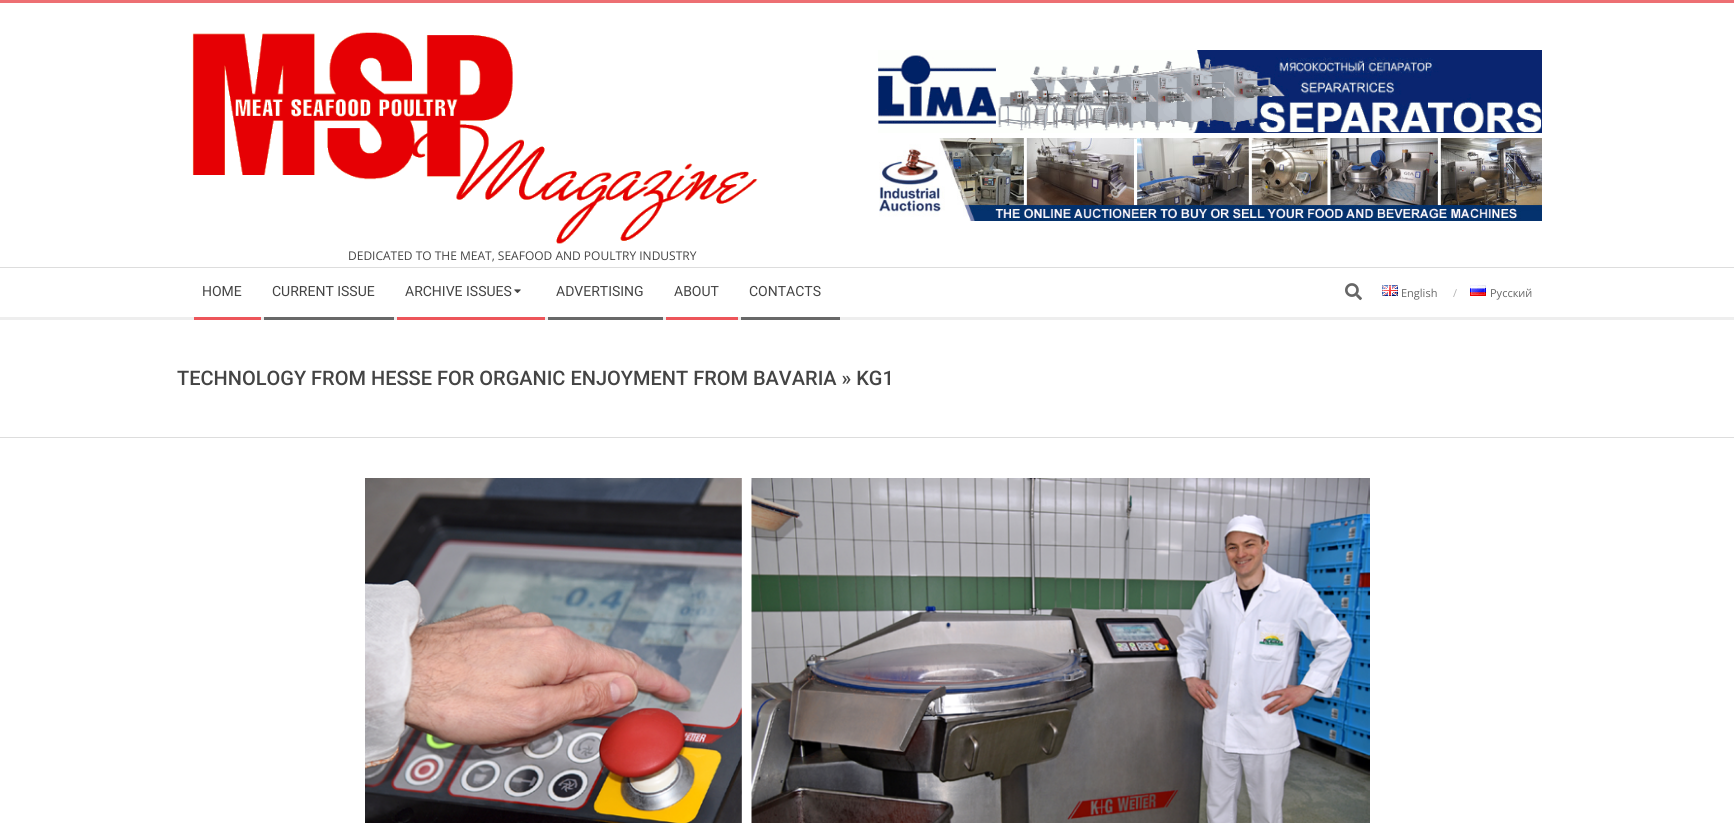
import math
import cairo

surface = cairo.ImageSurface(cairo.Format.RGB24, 1734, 823)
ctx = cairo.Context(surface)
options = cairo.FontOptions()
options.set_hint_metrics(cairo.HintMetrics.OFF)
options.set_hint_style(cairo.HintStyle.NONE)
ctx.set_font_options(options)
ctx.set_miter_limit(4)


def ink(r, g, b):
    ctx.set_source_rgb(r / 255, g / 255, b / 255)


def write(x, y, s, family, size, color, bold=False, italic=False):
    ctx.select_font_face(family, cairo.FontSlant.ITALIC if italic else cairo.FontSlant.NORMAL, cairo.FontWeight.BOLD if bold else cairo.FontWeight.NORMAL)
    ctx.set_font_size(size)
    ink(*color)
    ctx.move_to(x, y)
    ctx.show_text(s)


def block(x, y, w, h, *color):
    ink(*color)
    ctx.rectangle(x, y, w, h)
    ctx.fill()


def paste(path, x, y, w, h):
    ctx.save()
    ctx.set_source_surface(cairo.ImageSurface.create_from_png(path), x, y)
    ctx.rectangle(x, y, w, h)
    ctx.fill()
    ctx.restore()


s1 = dict(family="Open Sans", size=12, color=(68, 68, 68))
s2 = dict(family="Roboto", size=14, color=(68, 68, 68))
s3 = dict(family="Open Sans", size=11, color=(102, 102, 102))
s4 = dict(family="Open Sans", size=11, color=(179, 179, 179))
s5 = dict(family="Roboto Medium", size=20, color=(68, 68, 68))

ink(237, 111, 115)
ctx.paint()
block(0, 3, 1734, 264, 255, 255, 255)
block(0, 267, 1734, 1, 221, 221, 221)
paste("pic1.png", 878, 50, 664, 83)
paste("pic2.png", 879, 138, 663, 83)
paste("pic3.png", 192, 32, 566, 212)
write(348, 260, "DEDICATED TO THE MEAT, SEAFOOD AND POULTRY INDUSTRY", **s1)
block(0, 268, 1734, 49, 255, 255, 255)
block(0, 317, 1734, 3, 238, 238, 238)
write(202, 296, "HOME", **s2)
block(194, 317, 67, 3, 237, 85, 90)
write(272, 296, "CURRENT ISSUE", **s2)
block(264, 317, 130, 3, 104, 104, 104)
write(405, 296, "ARCHIVE ISSUES", **s2)
paste("pic4.png", 514, 289, 7, 4)
block(397, 317, 148, 3, 237, 85, 90)
write(556, 296, "ADVERTISING", **s2)
block(548, 317, 115, 3, 104, 104, 104)
write(674, 296, "ABOUT", **s2)
block(666, 317, 72, 3, 237, 85, 90)
write(749, 296, "CONTACTS", **s2)
block(741, 317, 99, 3, 104, 104, 104)
paste("pic5.png", 1345, 283, 17, 18)
paste("pic6.png", 1382, 285, 16, 11)
write(1401, 297, "English", **s3)
write(1453, 297, "/", **s4)
paste("pic7.png", 1470, 285, 16, 11)
write(1490, 297, "Русский", **s3)
block(0, 320, 1734, 503, 255, 255, 255)
block(0, 437, 1734, 1, 221, 221, 221)
write(177, 385, "TECHNOLOGY FROM HESSE FOR ORGANIC ENJOYMENT FROM BAVARIA » KG1", **s5)
paste("pic8.png", 365, 478, 1005, 345)
surface.write_to_png("screenshot.png")
